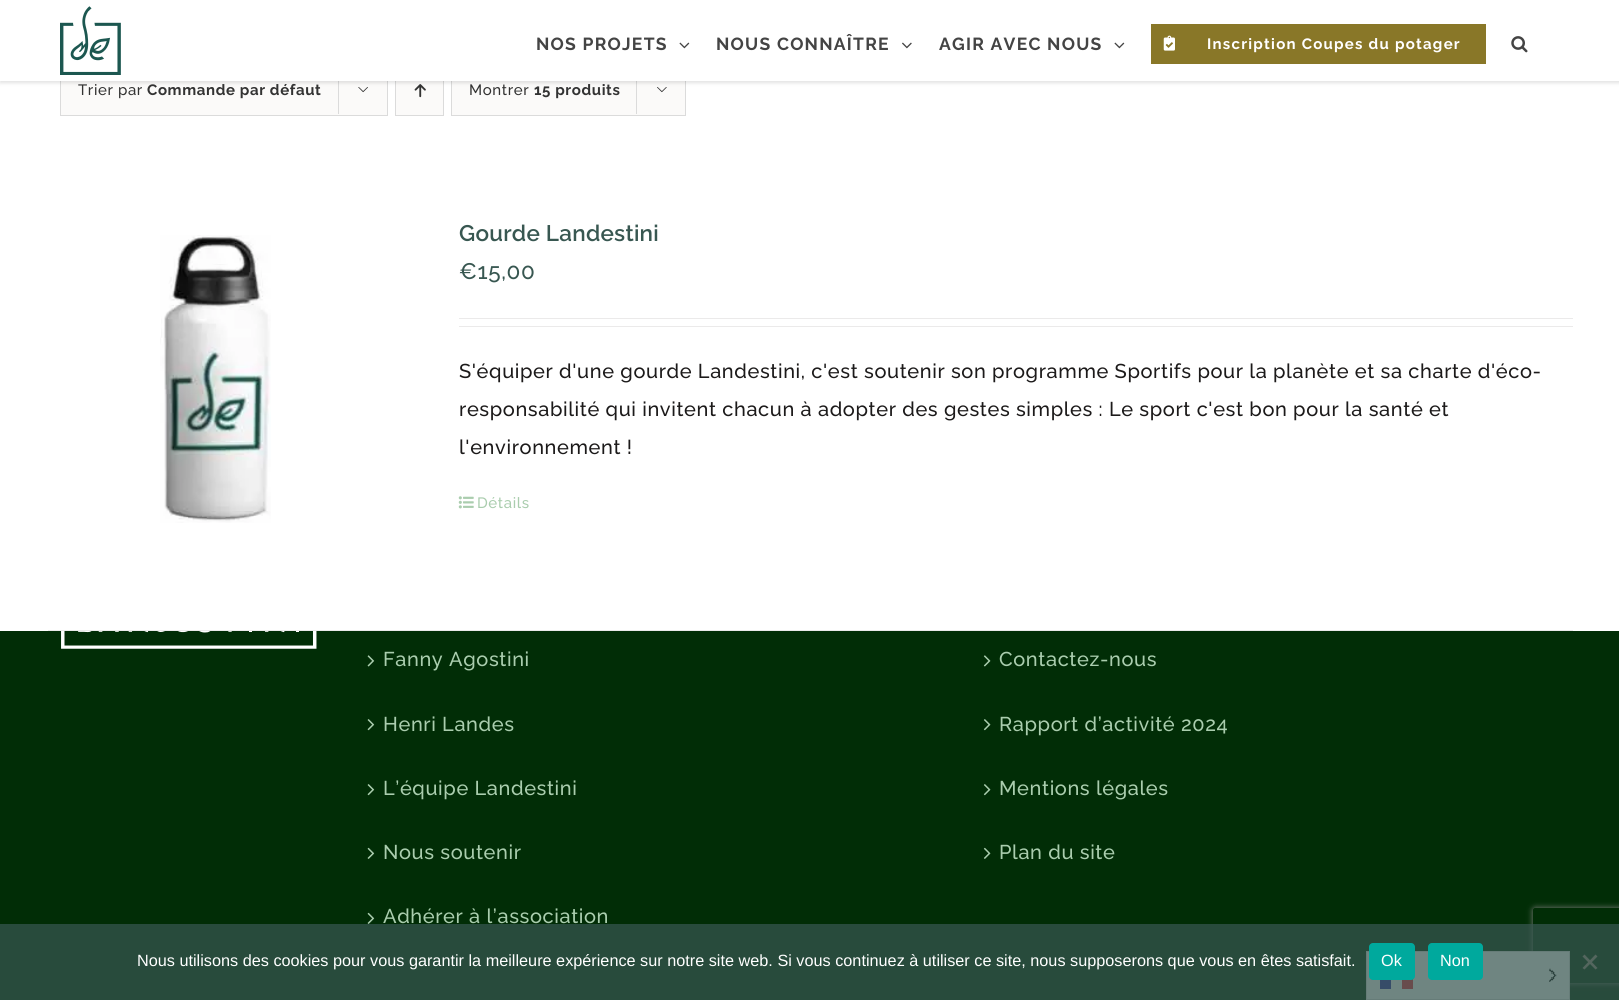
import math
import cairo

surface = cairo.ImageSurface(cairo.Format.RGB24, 1619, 1000)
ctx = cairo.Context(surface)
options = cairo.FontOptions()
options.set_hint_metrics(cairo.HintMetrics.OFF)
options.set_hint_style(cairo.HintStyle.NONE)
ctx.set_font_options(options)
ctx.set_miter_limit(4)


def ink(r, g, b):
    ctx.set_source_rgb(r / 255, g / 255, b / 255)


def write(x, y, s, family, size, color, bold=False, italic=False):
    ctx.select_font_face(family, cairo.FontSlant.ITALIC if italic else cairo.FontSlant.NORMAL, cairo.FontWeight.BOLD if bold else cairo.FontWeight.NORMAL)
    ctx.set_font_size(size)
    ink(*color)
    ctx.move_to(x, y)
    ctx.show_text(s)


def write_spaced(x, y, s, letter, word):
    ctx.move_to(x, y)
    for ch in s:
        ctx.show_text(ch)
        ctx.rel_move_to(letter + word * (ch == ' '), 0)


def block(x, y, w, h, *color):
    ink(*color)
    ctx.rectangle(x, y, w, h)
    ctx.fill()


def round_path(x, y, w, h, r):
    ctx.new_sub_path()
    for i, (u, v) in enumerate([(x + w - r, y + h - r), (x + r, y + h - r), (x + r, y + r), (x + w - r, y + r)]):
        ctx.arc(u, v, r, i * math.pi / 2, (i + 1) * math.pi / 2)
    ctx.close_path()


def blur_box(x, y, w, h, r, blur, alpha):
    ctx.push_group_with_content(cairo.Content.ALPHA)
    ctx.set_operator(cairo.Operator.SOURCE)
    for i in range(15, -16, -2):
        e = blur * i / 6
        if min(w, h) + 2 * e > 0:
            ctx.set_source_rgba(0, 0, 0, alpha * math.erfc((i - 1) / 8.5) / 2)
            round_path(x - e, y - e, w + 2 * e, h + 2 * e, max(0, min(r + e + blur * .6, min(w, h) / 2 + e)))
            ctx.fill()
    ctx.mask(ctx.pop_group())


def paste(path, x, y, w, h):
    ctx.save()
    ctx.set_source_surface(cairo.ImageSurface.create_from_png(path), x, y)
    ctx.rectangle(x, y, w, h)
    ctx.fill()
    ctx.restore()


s1 = dict(family="Liberation Sans", size=16.25, color=(255, 255, 255))

ink(1, 45, 6)
ctx.paint()
block(0, 81, 1619, 550, 255, 255, 255)
block(61, 81, 326, 34, 251, 250, 249)
ctx.rectangle(60.5, 65.5, 327, 50)
ink(219, 219, 219)
ctx.set_line_width(1)
ctx.stroke()
block(338, 81, 1, 33, 219, 219, 219)
paste("pic6.png", 358, 87, 10, 6)
block(396, 81, 47, 34, 251, 250, 249)
ctx.rectangle(395.5, 65.5, 48, 50)
ink(219, 219, 219)
ctx.stroke()
paste("pic7.png", 414, 84, 12, 14)
block(452, 81, 233, 34, 251, 250, 249)
ctx.rectangle(451.5, 65.5, 234, 50)
ink(219, 219, 219)
ctx.stroke()
block(636, 81, 1, 33, 219, 219, 219)
paste("pic8.png", 657, 87, 10, 6)
ink(0, 0, 0)
blur_box(0, 1, 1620, 82, 0, 2, 0.12)
block(0, 0, 1619, 81, 255, 255, 255)
paste("pic1.png", 60, 6, 61, 69)
ctx.select_font_face("Raleway", cairo.FontSlant.NORMAL, cairo.FontWeight.BOLD)
ctx.set_font_size(17.5)
ink(68, 68, 68)
write_spaced(536, 50, "NOS PROJETS", 1.25, 0)
paste("pic2.png", 679, 42, 11, 7)
write_spaced(716, 50, "NOUS CONNAÎTRE", 1.25, 0)
paste("pic3.png", 902, 42, 10, 7)
write_spaced(939, 50, "AGIR AVEC NOUS", 1.25, 0)
paste("pic2.png", 1114, 42, 11, 7)
block(1151, 24, 335, 40, 137, 119, 40)
paste("pic4.png", 1163, 35, 12, 16)
ctx.set_font_size(15)
ink(255, 255, 255)
write_spaced(1207, 49, "Inscription Coupes du potager", 1.25, 0)
paste("pic5.png", 1511, 36, 17, 17)
ctx.select_font_face("Raleway Medium")
ink(51, 51, 51)
write_spaced(78, 95, "Trier par", 0.62, 0)
ctx.select_font_face("Raleway", cairo.FontSlant.NORMAL, cairo.FontWeight.BOLD)
write_spaced(147, 95, "Commande par défaut", 0.62, 0)
ctx.select_font_face("Raleway Medium")
write_spaced(469, 95, "Montrer", 0.62, 0)
ctx.select_font_face("Raleway", cairo.FontSlant.NORMAL, cairo.FontWeight.BOLD)
write_spaced(534, 95, "15 produits", 0.62, 0)
block(48, 630, 1525, 1, 235, 234, 234)
paste("pic9.png", 160, 235, 111, 288)
ctx.select_font_face("Raleway SemiBold")
ctx.set_font_size(22.5)
ink(56, 87, 81)
write_spaced(459, 241, "Gourde Landestini", 0.25, 0)
ctx.select_font_face("Raleway Medium")
write_spaced(459, 279, "€15,00", 0.62, 0)
block(459, 318, 1114, 1, 235, 234, 234)
block(459, 326, 1114, 1, 235, 234, 234)
ctx.set_font_size(20)
ink(28, 26, 26)
write_spaced(459, 378, "S'équiper d'une gourde Landestini, c'est soutenir son programme Sportifs pour la planète et sa charte d'éco-", 0.62, 0)
write_spaced(459, 416, "responsabilité qui invitent chacun à adopter des gestes simples : Le sport c'est bon pour la santé et", 0.62, 0)
write_spaced(459, 454, "l'environnement !", 0.62, 0)
paste("pic10.png", 458, 496, 16, 13)
ctx.set_font_size(15)
ink(170, 205, 174)
write_spaced(477, 508, "Détails", 0.62, 0)
paste("pic11.png", 61, 631, 256, 18)
paste("pic12.png", 367, 655, 8, 12)
ctx.set_font_size(20)
write_spaced(383, 666, "Fanny Agostini", 0.62, 0)
paste("pic13.png", 367, 719, 8, 12)
write_spaced(383, 731, "Henri Landes", 0.62, 0)
paste("pic13.png", 367, 784, 8, 12)
write_spaced(383, 795, "L’équipe Landestini", 0.62, 0)
paste("pic14.png", 367, 847, 8, 12)
write_spaced(383, 859, "Nous soutenir", 0.62, 0)
paste("pic14.png", 367, 912, 8, 12)
write_spaced(383, 923, "Adhérer à l’association", 0.62, 0)
paste("pic15.png", 983, 655, 8, 12)
write_spaced(999, 666, "Contactez-nous", 0.62, 0)
paste("pic16.png", 983, 719, 8, 12)
write_spaced(999, 731, "Rapport d’activité 2024", 0.62, 0)
paste("pic16.png", 983, 784, 8, 12)
write_spaced(999, 795, "Mentions légales", 0.62, 0)
paste("pic17.png", 983, 847, 8, 12)
write_spaced(999, 859, "Plan du site", 0.62, 0)
ctx.save()
ctx.set_fill_rule(cairo.FillRule.EVEN_ODD)
ctx.new_path()
ctx.move_to(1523, 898)
ctx.line_to(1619, 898)
ctx.line_to(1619, 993)
ctx.line_to(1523, 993)
ctx.close_path()
ctx.move_to(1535.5, 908)
ctx.line_to(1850.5, 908)
ctx.curve_to(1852, 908, 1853, 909, 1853, 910.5)
ctx.line_to(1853, 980.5)
ctx.curve_to(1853, 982, 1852, 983, 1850.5, 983)
ctx.line_to(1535.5, 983)
ctx.curve_to(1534, 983, 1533, 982, 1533, 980.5)
ctx.line_to(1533, 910.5)
ctx.curve_to(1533, 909, 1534, 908, 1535.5, 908)
ctx.close_path()
ctx.clip()
ink(128, 128, 128)
blur_box(1533, 908, 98, 75, 2.5, 3, 1)
ctx.restore()
ink(255, 255, 255)
ctx.rectangle(1366.5, 951.5, 203, 48)
ctx.fill_preserve()
ink(224, 224, 224)
ctx.stroke()
paste("pic18.png", 1549, 968, 8, 14)
block(1380, 980, 11, 9, 51, 51, 167)
block(1402, 979, 11, 10, 231, 51, 63)
ctx.set_source_rgba(0.22, 0.341, 0.318, 0.72)
ctx.rectangle(0, 924, 1619, 76)
ctx.fill()
write(137, 966, "Nous utilisons des cookies pour vous garantir la meilleure expérience sur notre site web. Si vous continuez à utiliser ce site, nous supposerons que vous en êtes satisfait.", **s1)
ink(0, 169, 157)
round_path(1369, 943, 46, 37, 4)
ctx.fill()
write(1381, 966, "Ok", **s1)
ink(0, 169, 157)
round_path(1428, 943, 55, 37, 4)
ctx.fill()
write(1440, 966, "Non", **s1)
ink(84, 102, 94)
ctx.new_path()
ctx.move_to(1595.5, 954.5)
ctx.line_to(1597.5, 956.5)
ctx.line_to(1584.5, 969.5)
ctx.line_to(1582.5, 968)
ctx.close_path()
ctx.fill()
ctx.new_path()
ctx.move_to(1582.5, 956.5)
ctx.line_to(1584.5, 954.5)
ctx.line_to(1597.5, 968)
ctx.line_to(1595.5, 969.5)
ctx.close_path()
ctx.fill()
surface.write_to_png("screenshot.png")
